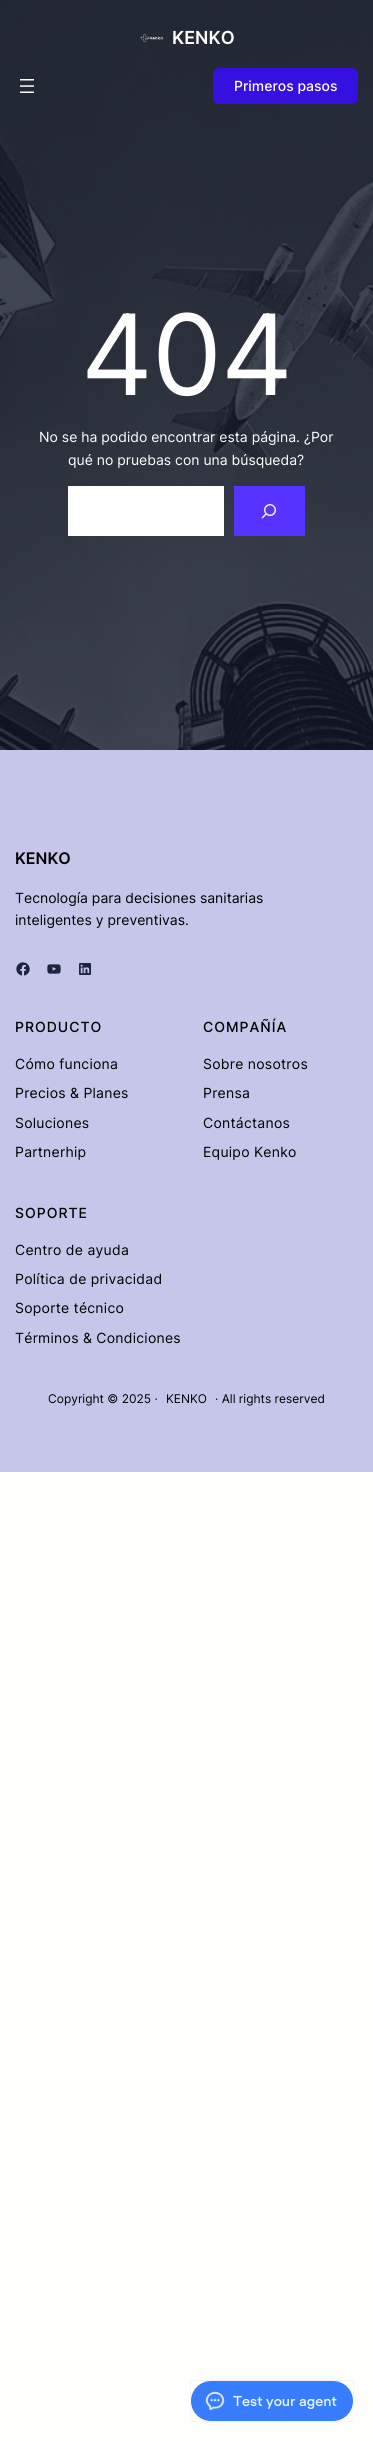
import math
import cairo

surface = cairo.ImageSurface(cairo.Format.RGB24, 373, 2441)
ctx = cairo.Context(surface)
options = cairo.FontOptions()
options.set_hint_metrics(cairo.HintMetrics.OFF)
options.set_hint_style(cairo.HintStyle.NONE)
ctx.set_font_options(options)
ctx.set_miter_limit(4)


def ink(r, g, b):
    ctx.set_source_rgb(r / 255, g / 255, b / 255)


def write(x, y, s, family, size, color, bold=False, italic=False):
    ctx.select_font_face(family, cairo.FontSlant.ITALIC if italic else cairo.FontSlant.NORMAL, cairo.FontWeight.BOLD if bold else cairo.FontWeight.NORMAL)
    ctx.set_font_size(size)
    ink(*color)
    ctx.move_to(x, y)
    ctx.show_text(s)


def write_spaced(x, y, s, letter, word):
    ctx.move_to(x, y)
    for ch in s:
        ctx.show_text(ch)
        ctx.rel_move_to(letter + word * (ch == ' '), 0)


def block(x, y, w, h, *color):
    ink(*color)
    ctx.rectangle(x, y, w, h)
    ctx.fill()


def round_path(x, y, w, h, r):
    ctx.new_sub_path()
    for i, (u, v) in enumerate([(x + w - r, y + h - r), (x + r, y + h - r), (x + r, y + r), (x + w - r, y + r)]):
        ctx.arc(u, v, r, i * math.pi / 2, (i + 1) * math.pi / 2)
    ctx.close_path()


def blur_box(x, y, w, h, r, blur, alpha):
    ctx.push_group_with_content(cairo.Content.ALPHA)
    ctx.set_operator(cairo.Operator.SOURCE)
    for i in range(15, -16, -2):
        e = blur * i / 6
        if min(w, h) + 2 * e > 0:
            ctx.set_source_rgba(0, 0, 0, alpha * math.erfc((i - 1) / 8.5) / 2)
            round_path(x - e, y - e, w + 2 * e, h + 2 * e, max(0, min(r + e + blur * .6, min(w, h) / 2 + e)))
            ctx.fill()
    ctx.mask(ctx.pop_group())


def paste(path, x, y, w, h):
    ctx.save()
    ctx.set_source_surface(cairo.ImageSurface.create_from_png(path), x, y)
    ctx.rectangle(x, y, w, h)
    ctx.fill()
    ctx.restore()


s1 = dict(family="Inter SemiBold", size=18, color=(255, 255, 255))
s2 = dict(family="Inter Medium", size=14, color=(255, 255, 255))
s3 = dict(family="Inter", size=14, color=(255, 255, 255))
s4 = dict(family="Inter SemiBold", size=16, color=(0, 0, 0))
s5 = dict(family="Inter", size=14, color=(0, 0, 0))
s6 = dict(family="Inter", size=12, color=(0, 0, 0))
s7 = dict(family="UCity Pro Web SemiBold", size=14, color=(231, 245, 253))

ink(255, 255, 253)
ctx.paint()
paste("pic3.png", 0, 0, 373, 750)
paste("pic1.png", 140, 33, 24, 10)
write(172, 44, "KENKO", **s1)
paste("pic2.png", 20, 79, 14, 14)
ink(54, 16, 224)
round_path(213, 68, 145, 36, 6)
ctx.fill()
write(234, 91, "Primeros pasos", **s2)
ctx.select_font_face("Inter")
ctx.set_font_size(112)
write_spaced(81, 395, "404", -1, 0)
write(39, 442, "No se ha podido encontrar esta página. ¿Por", **s3)
write(68, 465, "qué no pruebas con una búsqueda?", **s3)
block(68, 486, 156, 50, 255, 255, 255)
block(234, 486, 71, 50, 87, 51, 255)
paste("pic4.png", 261, 504, 16, 15)
block(0, 750, 373, 722, 197, 198, 233)
write(15, 864, "KENKO", **s4)
write(15, 903, "Tecnología para decisiones sanitarias", **s5)
write(15, 925, "inteligentes y preventivas.", **s5)
paste("pic5.png", 16, 962, 14, 14)
paste("pic6.png", 47, 964, 14, 10)
paste("pic7.png", 79, 963, 12, 12)
ctx.select_font_face("Inter Medium")
write_spaced(15, 1032, "PRODUCTO", 1, 0)
ctx.select_font_face("Inter")
write_spaced(15, 1069, "Cómo funciona", 0.25, 0)
write_spaced(15, 1098, "Precios & Planes", 0.25, 0)
write_spaced(15, 1128, "Soluciones", 0.25, 0)
write_spaced(15, 1157, "Partnerhip", 0.25, 0)
ctx.select_font_face("Inter Medium")
write_spaced(203, 1032, "COMPAÑÍA", 1, 0)
ctx.select_font_face("Inter")
write_spaced(203, 1069, "Sobre nosotros", 0.25, 0)
write_spaced(203, 1098, "Prensa", 0.25, 0)
write_spaced(203, 1128, "Contáctanos", 0.25, 0)
write_spaced(203, 1157, "Equipo Kenko", 0.25, 0)
ctx.select_font_face("Inter Medium")
write_spaced(15, 1218, "SOPORTE", 1, 0)
ctx.select_font_face("Inter")
write_spaced(15, 1255, "Centro de ayuda", 0.25, 0)
write_spaced(15, 1284, "Política de privacidad", 0.25, 0)
write_spaced(15, 1313, "Soporte técnico", 0.25, 0)
write_spaced(15, 1343, "Términos & Condiciones", 0.25, 0)
write(48, 1403, "Copyright © 2025 ·", **s6)
write(166, 1403, "KENKO", **s6)
write(215, 1403, "· All rights reserved", **s6)
ink(22, 26, 30)
blur_box(197, 2391, 150, 28, 14, 4, 0.08)
ctx.rectangle(190.5, 2380.5, 163, 41)
ctx.set_source_rgba(0.086, 0.102, 0.118, 0.04)
ctx.set_line_width(1)
ctx.stroke()
ink(57, 125, 255)
round_path(191, 2381, 162, 40, 20)
ctx.fill()
paste("pic8.png", 205, 2391, 20, 20)
write(233, 2406, "Test your agent", **s7)
surface.write_to_png("screenshot.png")
